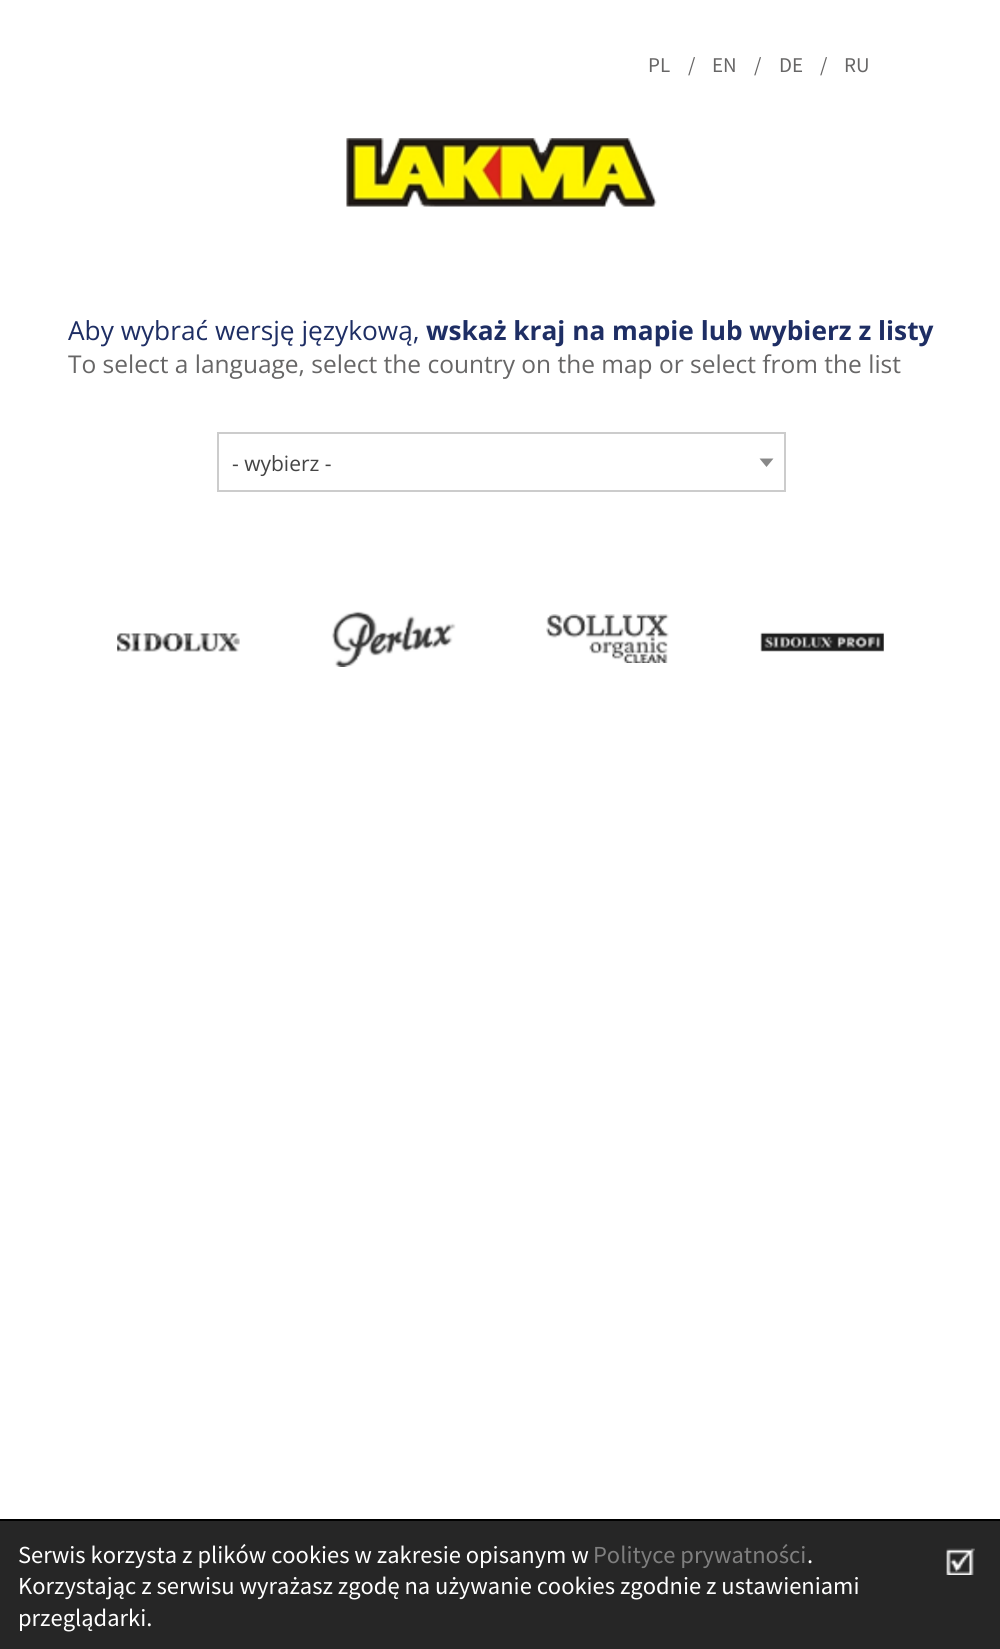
import math
import cairo

surface = cairo.ImageSurface(cairo.Format.RGB24, 1000, 1649)
ctx = cairo.Context(surface)
options = cairo.FontOptions()
options.set_hint_metrics(cairo.HintMetrics.OFF)
options.set_hint_style(cairo.HintStyle.NONE)
ctx.set_font_options(options)
ctx.set_miter_limit(4)


def ink(r, g, b):
    ctx.set_source_rgb(r / 255, g / 255, b / 255)


def write(x, y, s, family, size, color, bold=False, italic=False):
    ctx.select_font_face(family, cairo.FontSlant.ITALIC if italic else cairo.FontSlant.NORMAL, cairo.FontWeight.BOLD if bold else cairo.FontWeight.NORMAL)
    ctx.set_font_size(size)
    ink(*color)
    ctx.move_to(x, y)
    ctx.show_text(s)


def block(x, y, w, h, *color):
    ink(*color)
    ctx.rectangle(x, y, w, h)
    ctx.fill()


def paste(path, x, y, w, h):
    ctx.save()
    ctx.set_source_surface(cairo.ImageSurface.create_from_png(path), x, y)
    ctx.rectangle(x, y, w, h)
    ctx.fill()
    ctx.restore()


s1 = dict(family="Source Sans Pro", size=21, color=(103, 102, 102))
s2 = dict(family="Open Sans", size=26.25, color=(30, 46, 100))
s3 = dict(family="Open Sans", size=26.25, color=(30, 46, 100), bold=True)
s4 = dict(family="Open Sans", size=24.5, color=(103, 102, 102))
s5 = dict(family="Open Sans", size=21, color=(68, 68, 68))
s6 = dict(family="Source Sans Pro", size=24.5, color=(255, 255, 255))
s7 = dict(family="Source Sans Pro", size=24.5, color=(127, 127, 127))

ink(255, 255, 255)
ctx.paint()
write(648, 72, "PL", **s1)
write(688, 72, "/", **s1)
write(712, 72, "EN", **s1)
write(754, 72, "/", **s1)
write(779, 72, "DE", **s1)
write(820, 72, "/", **s1)
write(844, 72, "RU", **s1)
paste("pic1.png", 346, 138, 311, 69)
write(68, 340, "Aby wybrać wersję językową,", **s2)
write(426, 340, "wskaż kraj na mapie lub wybierz z listy", **s3)
write(68, 373, "To select a language, select the country on the map or select from the list", **s4)
ctx.rectangle(218, 433, 567, 58)
ink(204, 204, 204)
ctx.stroke()
write(232, 471, "- wybierz -", **s5)
ink(136, 136, 136)
ctx.new_path()
ctx.move_to(759.5, 458.5)
ctx.line_to(773.5, 458.5)
ctx.line_to(766.5, 467)
ctx.close_path()
ctx.fill()
paste("pic2.png", 117, 633, 123, 19)
paste("pic3.png", 331, 611, 125, 56)
paste("pic4.png", 546, 614, 123, 49)
paste("pic5.png", 760, 632, 124, 20)
block(0, 1521, 1000, 128, 38, 38, 38)
block(0, 1519, 1000, 2, 0, 0, 0)
write(18, 1563, "Serwis korzysta z plików cookies w zakresie opisanym w", **s6)
write(593, 1563, "Polityce prywatności", **s7)
write(807, 1563, ".", **s6)
write(18, 1594, "Korzystając z serwisu wyrażasz zgodę na używanie cookies zgodnie z ustawieniami", **s6)
write(18, 1626, "przeglądarki.", **s6)
paste("pic6.png", 946, 1548, 29, 27)
surface.write_to_png("screenshot.png")
